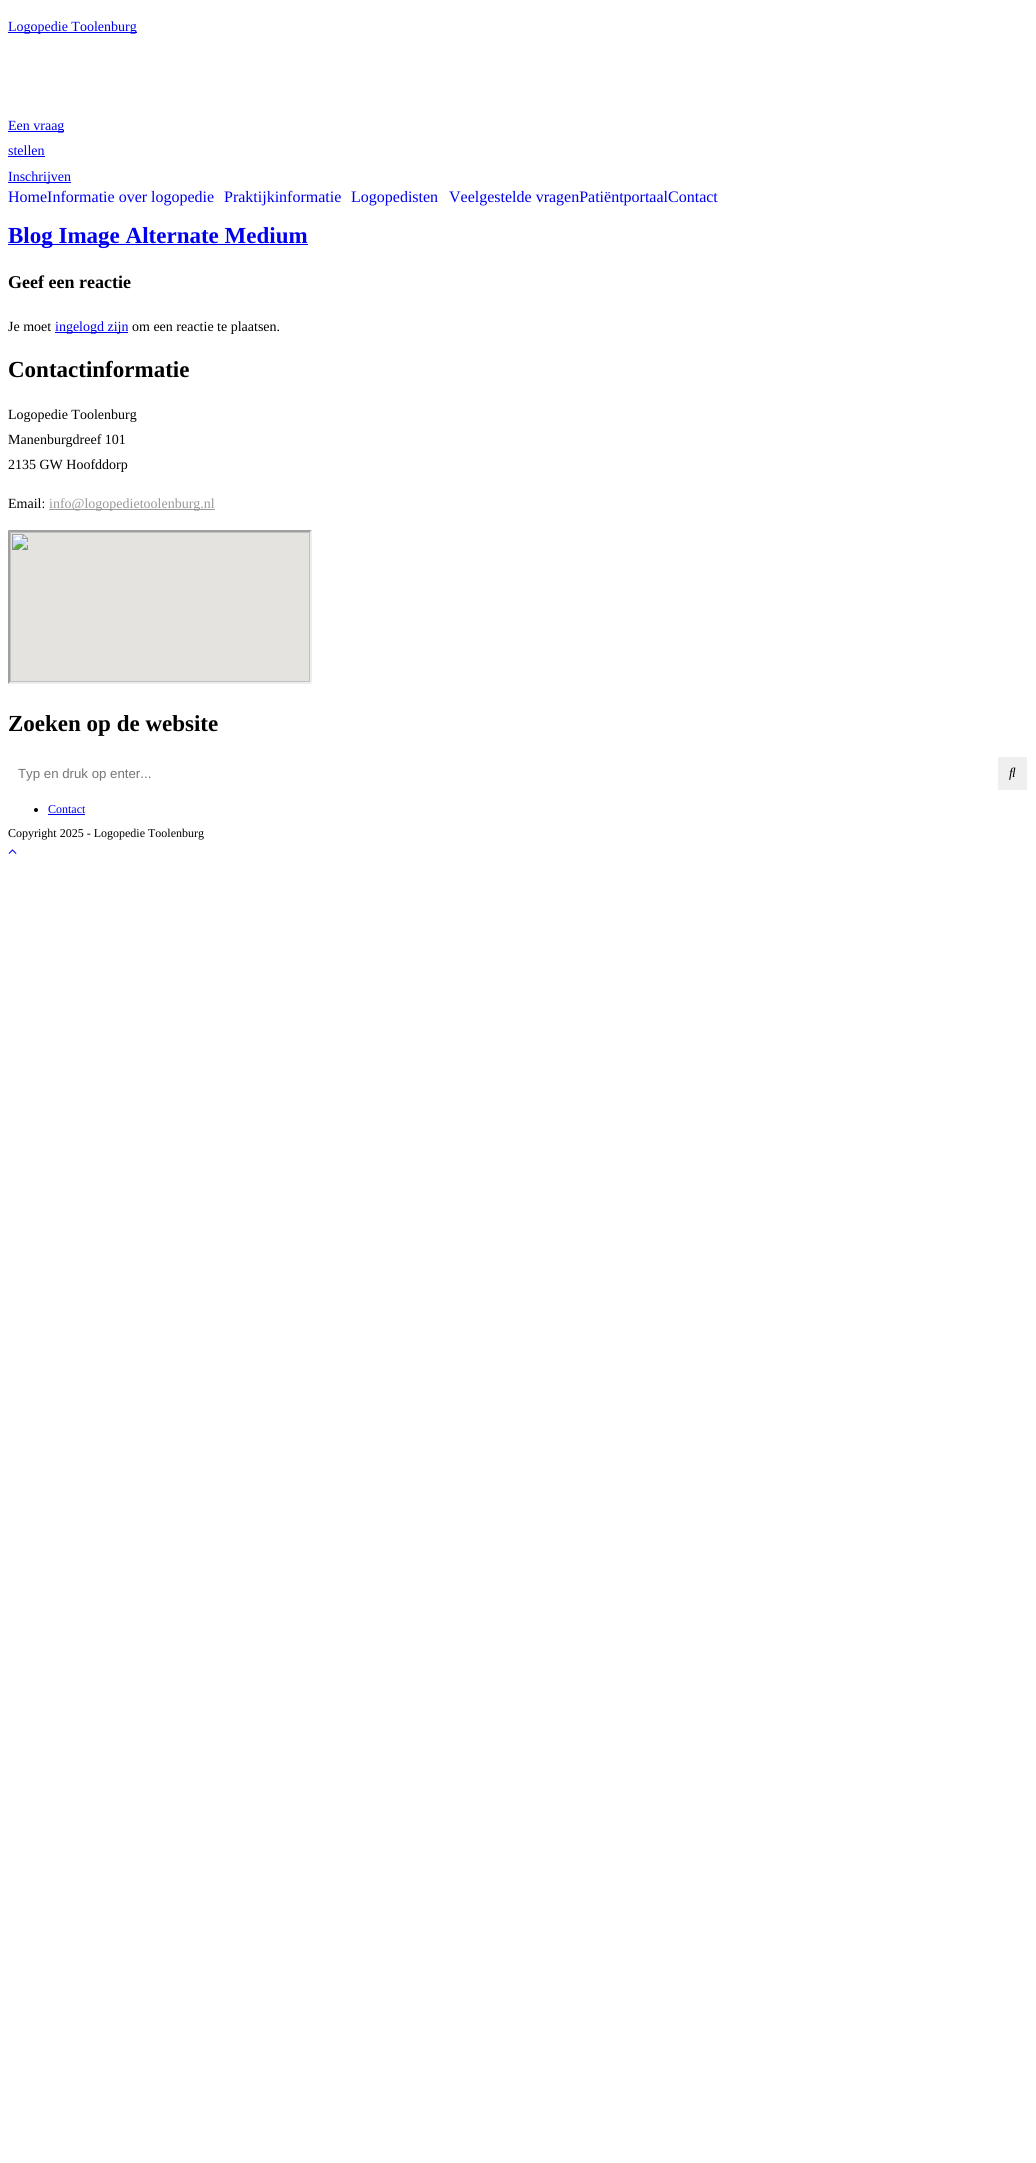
import math
import cairo

surface = cairo.ImageSurface(cairo.Format.RGB24, 1036, 2163)
ctx = cairo.Context(surface)
options = cairo.FontOptions()
options.set_hint_metrics(cairo.HintMetrics.OFF)
options.set_hint_style(cairo.HintStyle.NONE)
ctx.set_font_options(options)
ctx.set_miter_limit(4)


def ink(r, g, b):
    ctx.set_source_rgb(r / 255, g / 255, b / 255)


def write(x, y, s, family, size, color, bold=False, italic=False):
    ctx.select_font_face(family, cairo.FontSlant.ITALIC if italic else cairo.FontSlant.NORMAL, cairo.FontWeight.BOLD if bold else cairo.FontWeight.NORMAL)
    ctx.set_font_size(size)
    ink(*color)
    ctx.move_to(x, y)
    ctx.show_text(s)


def block(x, y, w, h, *color):
    ink(*color)
    ctx.rectangle(x, y, w, h)
    ctx.fill()


def paste(path, x, y, w, h):
    ctx.save()
    ctx.set_source_surface(cairo.ImageSurface.create_from_png(path), x, y)
    ctx.rectangle(x, y, w, h)
    ctx.fill()
    ctx.restore()


s1 = dict(family="Liberation Serif", size=14, color=(0, 0, 238))
s2 = dict(family="Liberation Serif", size=16, color=(0, 0, 238))
s3 = dict(family="Liberation Serif", size=23, color=(0, 0, 238), bold=True)
s4 = dict(family="Liberation Serif", size=18, color=(0, 0, 0), bold=True)
s5 = dict(family="Liberation Serif", size=14, color=(0, 0, 0))
s6 = dict(family="Liberation Serif", size=23, color=(0, 0, 0), bold=True)
s7 = dict(family="Liberation Serif", size=14, color=(153, 153, 153))
s8 = dict(family="Liberation Sans", size=13.25, color=(117, 117, 117))
s9 = dict(family="Liberation Serif", size=12, color=(0, 0, 238))
s10 = dict(family="Liberation Serif", size=12, color=(0, 0, 0))

ink(255, 255, 255)
ctx.paint()
block(8, 32, 129, 1, 0, 0, 238)
write(8, 31, "Logopedie Toolenburg", **s1)
block(8, 131, 56, 1, 0, 0, 238)
write(8, 130, "Een vraag", **s1)
write(8, 155, "stellen", **s1)
block(8, 156, 37, 1, 0, 0, 238)
block(8, 182, 63, 1, 0, 0, 238)
write(8, 181, "Inschrijven", **s1)
write(8, 202, "HomeInformatie over logopedie", **s2)
write(224, 202, "Praktijkinformatie", **s2)
write(351, 202, "Logopedisten", **s2)
write(449, 202, "Veelgestelde vragenPatiëntportaalContact", **s2)
block(8, 244, 300, 1, 0, 0, 238)
write(8, 243, "Blog Image Alternate Medium", **s3)
write(8, 288, "Geef een reactie", **s4)
write(8, 331, "Je moet", **s5)
block(55, 332, 73, 1, 0, 0, 238)
write(55, 331, "ingelogd zijn", **s1)
write(132, 331, "om een reactie te plaatsen.", **s5)
write(8, 377, "Contactinformatie", **s6)
write(8, 419, "Logopedie Toolenburg", **s5)
write(8, 444, "Manenburgdreef 101", **s5)
write(8, 469, "2135 GW Hoofddorp", **s5)
write(8, 508, "Email:", **s5)
block(49, 509, 166, 1, 153, 153, 153)
write(49, 508, "info@logopedietoolenburg.nl", **s7)
ink(159, 159, 159)
ctx.new_path()
ctx.move_to(8, 530)
ctx.line_to(312, 530)
ctx.line_to(310, 532)
ctx.line_to(10, 532)
ctx.close_path()
ctx.fill()
ink(238, 238, 238)
ctx.new_path()
ctx.move_to(312, 530)
ctx.line_to(312, 684)
ctx.line_to(310, 682)
ctx.line_to(310, 532)
ctx.close_path()
ctx.fill()
ctx.new_path()
ctx.move_to(312, 684)
ctx.line_to(8, 684)
ctx.line_to(10, 682)
ctx.line_to(310, 682)
ctx.close_path()
ctx.fill()
ink(159, 159, 159)
ctx.new_path()
ctx.move_to(8, 684)
ctx.line_to(8, 530)
ctx.line_to(10, 532)
ctx.line_to(10, 682)
ctx.close_path()
ctx.fill()
paste("pic1.png", 10, 532, 300, 150)
write(8, 731, "Zoeken op de website", **s6)
write(18, 778, "Typ en druk op enter...", **s8)
block(998, 757, 29, 33, 239, 239, 239)
paste("pic2.png", 1009, 767, 7, 13)
ink(0, 0, 0)
ctx.arc(36, 810, 2, 0, 2 * math.pi)
ctx.fill()
write(48, 813, "Contact", **s9)
block(48, 814, 37, 1, 0, 0, 238)
write(8, 837, "Copyright 2025 - Logopedie Toolenburg", **s10)
paste("pic3.png", 8, 849, 9, 5)
surface.write_to_png("screenshot.png")
